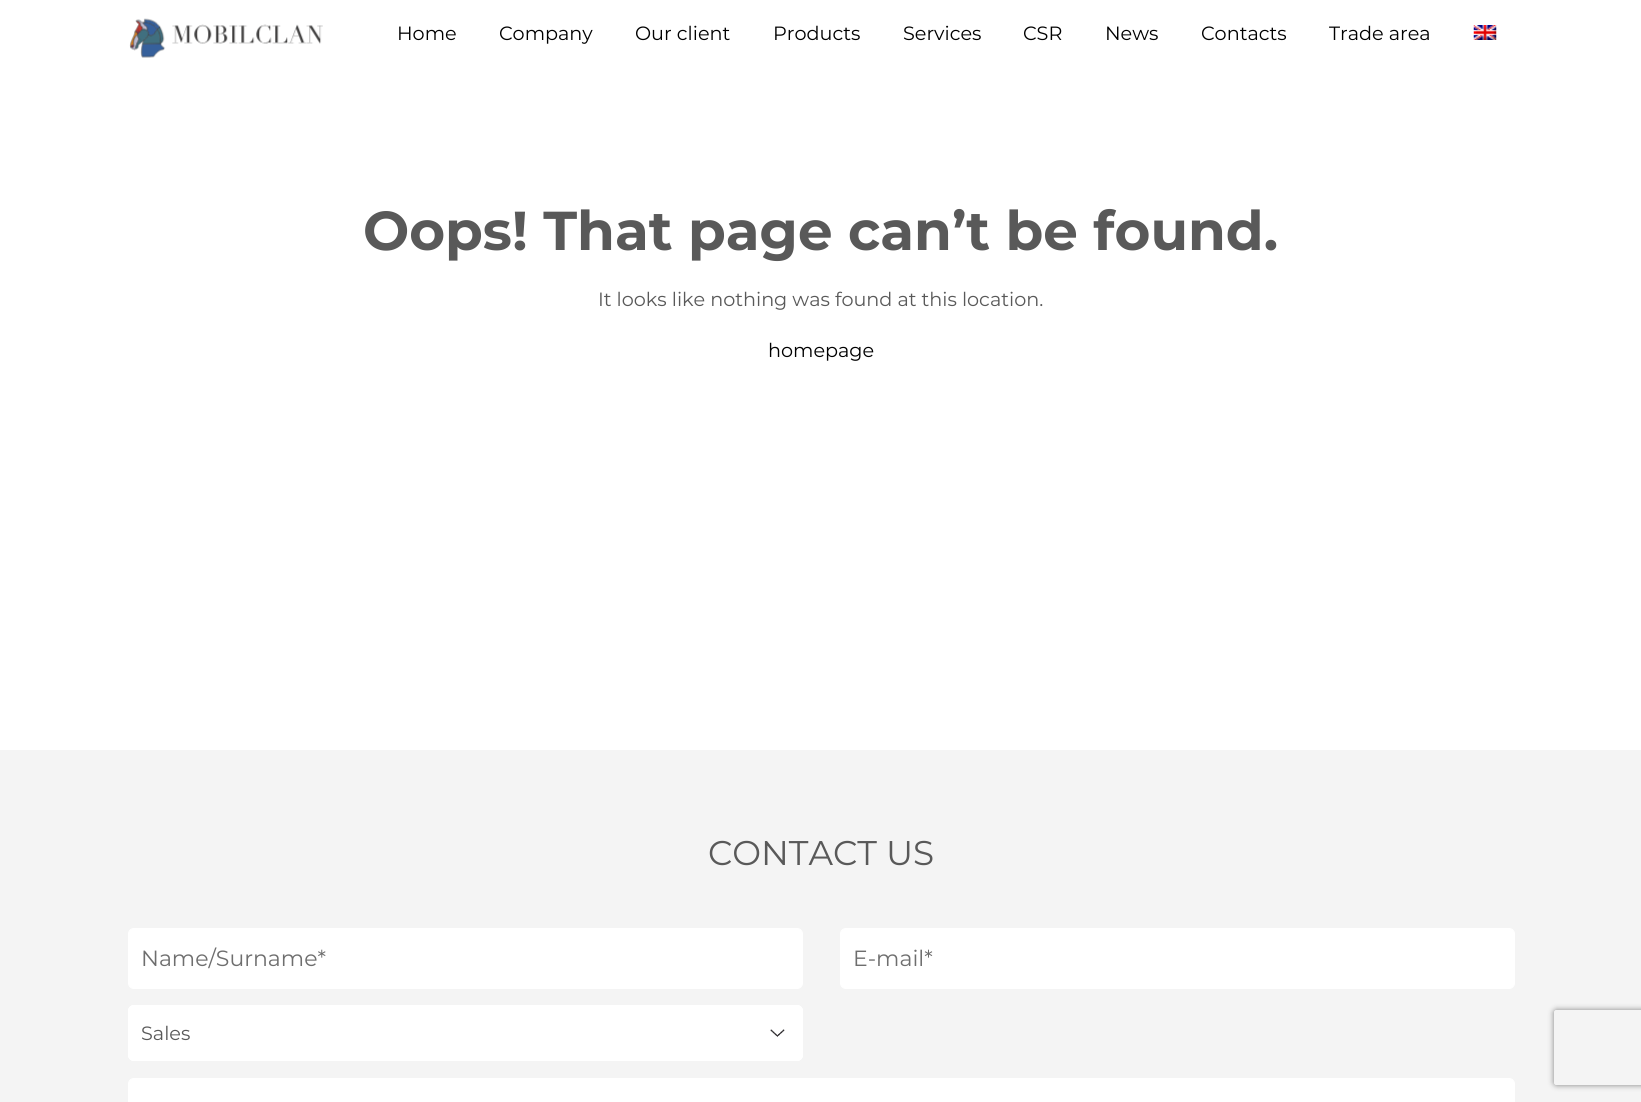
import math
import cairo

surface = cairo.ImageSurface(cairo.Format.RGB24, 1641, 1102)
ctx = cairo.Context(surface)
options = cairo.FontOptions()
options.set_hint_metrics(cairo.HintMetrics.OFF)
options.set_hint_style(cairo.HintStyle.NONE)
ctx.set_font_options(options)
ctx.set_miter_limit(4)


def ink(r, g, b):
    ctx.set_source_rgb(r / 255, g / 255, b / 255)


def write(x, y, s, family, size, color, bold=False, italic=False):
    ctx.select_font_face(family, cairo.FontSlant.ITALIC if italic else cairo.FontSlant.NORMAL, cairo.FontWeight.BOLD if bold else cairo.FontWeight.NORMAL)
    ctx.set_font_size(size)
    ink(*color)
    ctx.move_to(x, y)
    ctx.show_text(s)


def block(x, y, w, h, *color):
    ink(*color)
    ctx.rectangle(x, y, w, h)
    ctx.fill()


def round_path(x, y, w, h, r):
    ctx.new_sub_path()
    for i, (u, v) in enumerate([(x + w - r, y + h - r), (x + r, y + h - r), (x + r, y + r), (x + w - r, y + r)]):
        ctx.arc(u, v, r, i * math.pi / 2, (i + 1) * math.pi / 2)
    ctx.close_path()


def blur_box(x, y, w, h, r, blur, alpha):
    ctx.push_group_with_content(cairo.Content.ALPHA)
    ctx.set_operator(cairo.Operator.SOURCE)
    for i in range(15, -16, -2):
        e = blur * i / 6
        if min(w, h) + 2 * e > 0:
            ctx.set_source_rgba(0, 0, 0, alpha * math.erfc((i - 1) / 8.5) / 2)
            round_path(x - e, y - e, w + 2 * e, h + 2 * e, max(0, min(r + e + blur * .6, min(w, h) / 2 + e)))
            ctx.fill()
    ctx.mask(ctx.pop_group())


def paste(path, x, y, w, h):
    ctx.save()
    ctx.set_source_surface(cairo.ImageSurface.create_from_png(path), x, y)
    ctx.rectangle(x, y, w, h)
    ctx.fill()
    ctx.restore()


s1 = dict(family="Montserrat", size=19.2, color=(0, 0, 0))
s2 = dict(family="Montserrat", size=54.75, color=(89, 89, 89), bold=True)
s3 = dict(family="Montserrat", size=19.2, color=(89, 89, 89))
s4 = dict(family="Montserrat", size=34.25, color=(89, 89, 89))
s5 = dict(family="Montserrat", size=22, color=(110, 110, 110))

ink(255, 255, 255)
ctx.paint()
paste("pic1.png", 129, 18, 194, 40)
write(397, 40, "Home", **s1)
write(499, 40, "Company", **s1)
write(635, 40, "Our client", **s1)
write(773, 40, "Products", **s1)
write(903, 40, "Services", **s1)
write(1023, 40, "CSR", **s1)
write(1105, 40, "News", **s1)
write(1201, 40, "Contacts", **s1)
write(1329, 40, "Trade area", **s1)
paste("pic2.png", 1473, 25, 24, 15)
write(363, 250, "Oops! That page can’t be found.", **s2)
write(598, 306, "It looks like nothing was found at this location.", **s3)
write(768, 357, "homepage", **s1)
block(0, 750, 1641, 352, 244, 244, 244)
write(708, 865, "CONTACT US", **s4)
ink(255, 255, 255)
round_path(128.5, 928.5, 674, 60, 5.5)
ctx.fill_preserve()
ctx.set_line_width(1)
ctx.stroke()
write(141, 966, "Name/Surname*", **s5)
ink(255, 255, 255)
round_path(840.5, 928.5, 674, 60, 5.5)
ctx.fill_preserve()
ctx.stroke()
write(853, 966, "E-mail*", **s5)
ink(255, 255, 255)
round_path(128, 1005, 675, 56, 6)
ctx.fill()
paste("pic3.png", 770, 1029, 15, 8)
round_path(128.5, 1005.5, 674, 55, 5.5)
ctx.stroke()
write(141, 1040, "Sales", **s3)
ink(255, 255, 255)
round_path(128.5, 1078.5, 1386, 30, 5.5)
ctx.fill_preserve()
ctx.stroke()
ctx.save()
ctx.set_fill_rule(cairo.FillRule.EVEN_ODD)
ctx.new_path()
ctx.move_to(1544, 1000)
ctx.line_to(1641, 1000)
ctx.line_to(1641, 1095)
ctx.line_to(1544, 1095)
ctx.close_path()
ctx.move_to(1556.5, 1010)
ctx.line_to(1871.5, 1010)
ctx.curve_to(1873, 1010, 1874, 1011, 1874, 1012.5)
ctx.line_to(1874, 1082.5)
ctx.curve_to(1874, 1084, 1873, 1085, 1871.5, 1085)
ctx.line_to(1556.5, 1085)
ctx.curve_to(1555, 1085, 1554, 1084, 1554, 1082.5)
ctx.line_to(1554, 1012.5)
ctx.curve_to(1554, 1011, 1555, 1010, 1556.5, 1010)
ctx.close_path()
ctx.clip()
ink(128, 128, 128)
blur_box(1554, 1010, 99, 75, 2.5, 3, 1)
ctx.restore()
surface.write_to_png("screenshot.png")
